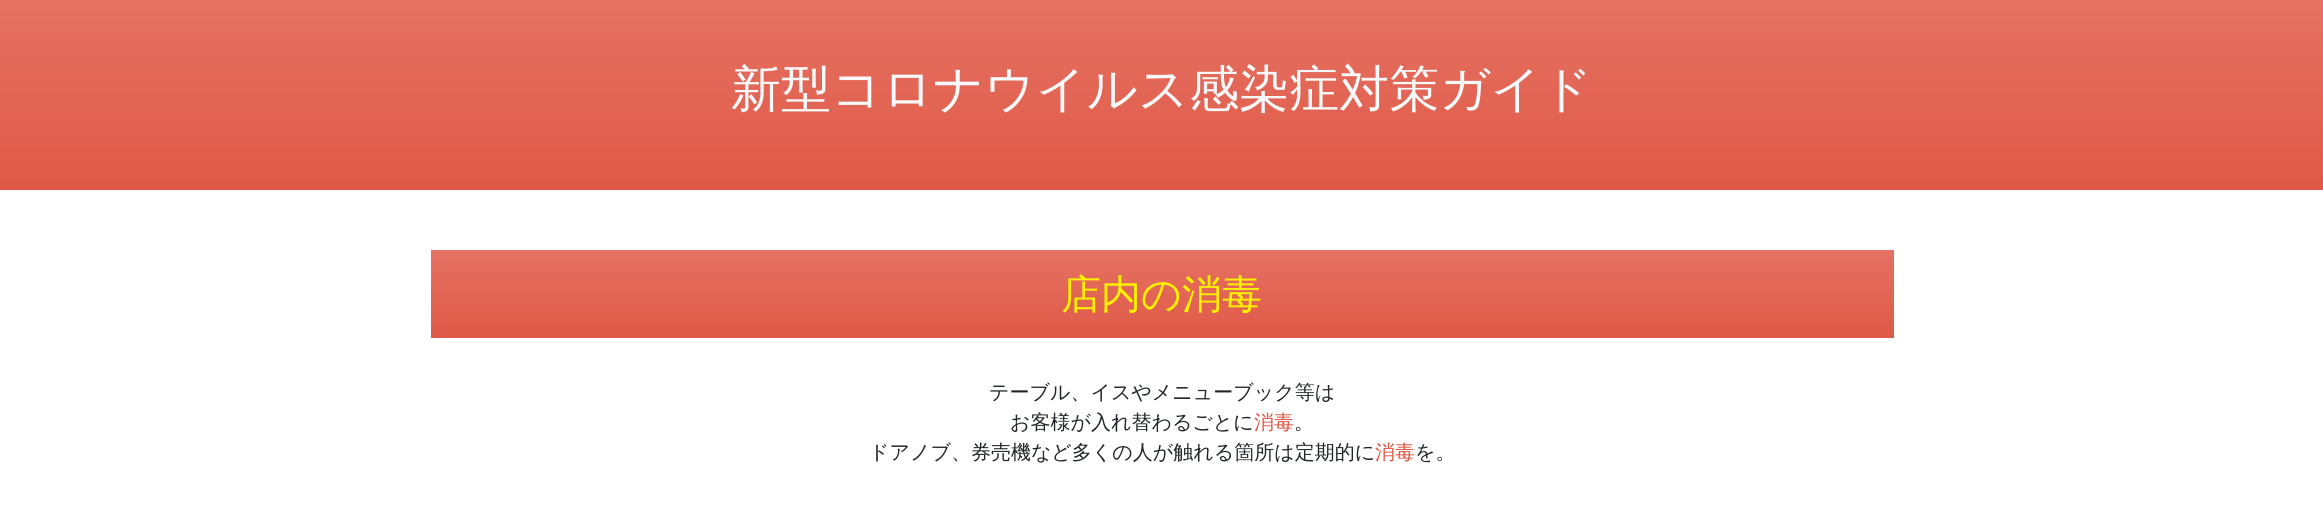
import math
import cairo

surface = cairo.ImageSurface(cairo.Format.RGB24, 2323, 518)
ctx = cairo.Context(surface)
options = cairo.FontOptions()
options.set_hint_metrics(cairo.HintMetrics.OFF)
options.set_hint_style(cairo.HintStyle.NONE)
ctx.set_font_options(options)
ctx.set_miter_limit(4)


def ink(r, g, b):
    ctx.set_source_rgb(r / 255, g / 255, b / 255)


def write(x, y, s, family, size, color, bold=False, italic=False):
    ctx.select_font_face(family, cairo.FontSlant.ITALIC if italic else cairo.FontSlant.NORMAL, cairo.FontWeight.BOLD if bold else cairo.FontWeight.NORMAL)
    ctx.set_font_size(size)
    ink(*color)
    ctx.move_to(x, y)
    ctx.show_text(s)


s1 = dict(family="WenQuanYi Zen Hei Medium", size=50, color=(248, 249, 250))
s2 = dict(family="WenQuanYi Zen Hei Medium", size=40, color=(255, 241, 0))
s3 = dict(family="WenQuanYi Zen Hei Medium", size=20, color=(33, 37, 41))
s4 = dict(family="WenQuanYi Zen Hei Medium", size=20, color=(224, 89, 71))

ink(255, 255, 255)
ctx.paint()
gradient = cairo.LinearGradient(1162, 0, 1162, 190)
gradient.add_color_stop_rgba(0, 0.898, 0.447, 0.388, 1)
gradient.add_color_stop_rgba(1, 0.878, 0.349, 0.278, 1)
ctx.set_source(gradient)
ctx.rectangle(0, 0, 2323, 190)
ctx.fill()
write(731, 106, "新型コロナウイルス感染症対策ガイド", **s1)
gradient = cairo.LinearGradient(1163, 250, 1163, 338)
gradient.add_color_stop_rgba(0, 0.898, 0.447, 0.388, 1)
gradient.add_color_stop_rgba(1, 0.878, 0.349, 0.278, 1)
ctx.set_source(gradient)
ctx.rectangle(431, 250, 1463, 88)
ctx.fill()
write(1061, 308, "店内の消毒", **s2)
write(989, 399, "テーブル、イスやメニューブック等は", **s3)
write(1010, 429, "お客様が入れ替わるごとに", **s3)
write(1254, 429, "消毒", **s4)
write(1294, 429, "。", **s3)
write(869, 459, "ドアノブ、券売機など多くの人が触れる箇所は定期的に", **s3)
write(1375, 459, "消毒", **s4)
write(1415, 459, "を。", **s3)
surface.write_to_png("screenshot.png")
